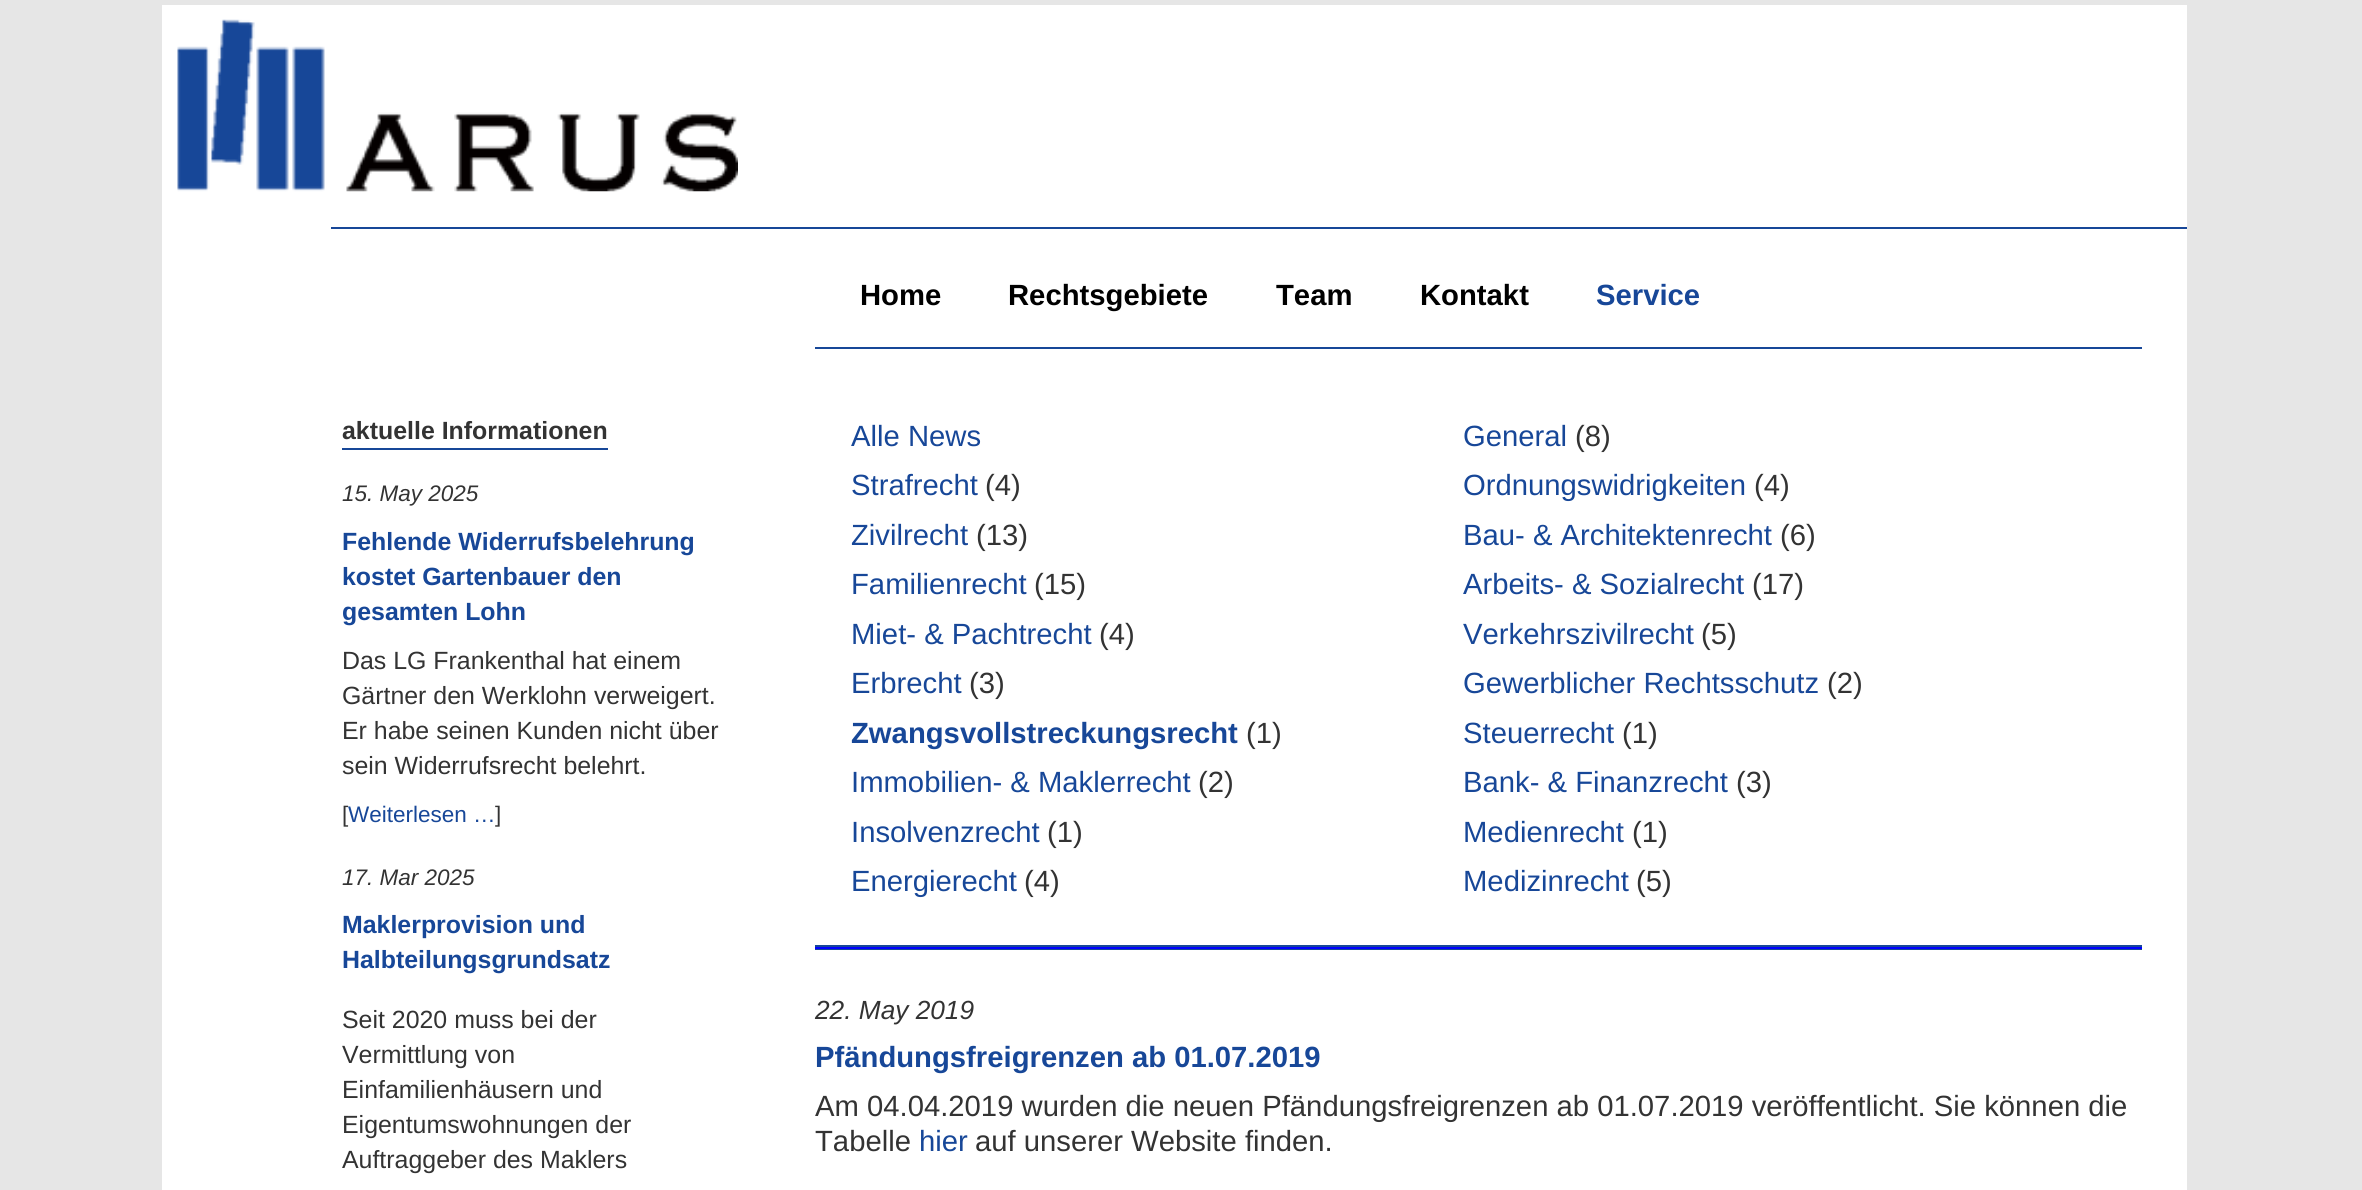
import math
import cairo

surface = cairo.ImageSurface(cairo.Format.RGB24, 2362, 1190)
ctx = cairo.Context(surface)
options = cairo.FontOptions()
options.set_hint_metrics(cairo.HintMetrics.OFF)
options.set_hint_style(cairo.HintStyle.NONE)
ctx.set_font_options(options)
ctx.set_miter_limit(4)


def ink(r, g, b):
    ctx.set_source_rgb(r / 255, g / 255, b / 255)


def write(x, y, s, family, size, color, bold=False, italic=False):
    ctx.select_font_face(family, cairo.FontSlant.ITALIC if italic else cairo.FontSlant.NORMAL, cairo.FontWeight.BOLD if bold else cairo.FontWeight.NORMAL)
    ctx.set_font_size(size)
    ink(*color)
    ctx.move_to(x, y)
    ctx.show_text(s)


def block(x, y, w, h, *color):
    ink(*color)
    ctx.rectangle(x, y, w, h)
    ctx.fill()


def paste(path, x, y, w, h):
    ctx.save()
    ctx.set_source_surface(cairo.ImageSurface.create_from_png(path), x, y)
    ctx.rectangle(x, y, w, h)
    ctx.fill()
    ctx.restore()


s1 = dict(family="Liberation Sans", size=29.25, color=(0, 0, 0), bold=True)
s2 = dict(family="Liberation Sans", size=29.25, color=(23, 71, 152), bold=True)
s3 = dict(family="Liberation Sans", size=24.9, color=(51, 51, 51), bold=True)
s4 = dict(family="Liberation Sans", size=22.5, color=(51, 51, 51), italic=True)
s5 = dict(family="Liberation Sans", size=24.9, color=(23, 71, 152), bold=True)
s6 = dict(family="Liberation Sans", size=24.9, color=(51, 51, 51))
s7 = dict(family="Liberation Sans", size=22.5, color=(51, 51, 51))
s8 = dict(family="Liberation Sans", size=22.5, color=(23, 71, 152))
s9 = dict(family="Liberation Sans", size=29.25, color=(23, 71, 152))
s10 = dict(family="Liberation Sans", size=29.25, color=(51, 51, 51))
s11 = dict(family="Liberation Sans", size=26.25, color=(51, 51, 51), italic=True)

ink(230, 230, 230)
ctx.paint()
block(162, 5, 2025, 1185, 255, 255, 255)
paste("pic1.png", 177, 19, 561, 173)
block(331, 227, 1856, 2, 23, 71, 152)
write(860, 305, "Home", **s1)
write(1008, 305, "Rechtsgebiete", **s1)
write(1276, 305, "Team", **s1)
write(1420, 305, "Kontakt", **s1)
write(1596, 305, "Service", **s2)
write(342, 439, "aktuelle Informationen", **s3)
block(342, 448, 266, 2, 23, 71, 152)
write(342, 501, "15. May 2025", **s4)
write(342, 550, "Fehlende Widerrufsbelehrung", **s5)
write(342, 585, "kostet Gartenbauer den", **s5)
write(342, 620, "gesamten Lohn", **s5)
write(342, 669, "Das LG Frankenthal hat einem", **s6)
write(342, 704, "Gärtner den Werklohn verweigert.", **s6)
write(342, 739, "Er habe seinen Kunden nicht über", **s6)
write(342, 774, "sein Widerrufsrecht belehrt.", **s6)
write(342, 822, "[", **s7)
write(348, 822, "Weiterlesen …", **s8)
write(495, 822, "]", **s7)
write(342, 885, "17. Mar 2025", **s4)
write(342, 933, "Maklerprovision und", **s5)
write(342, 968, "Halbteilungsgrundsatz", **s5)
write(342, 1028, "Seit 2020 muss bei der", **s6)
write(342, 1063, "Vermittlung von", **s6)
write(342, 1098, "Einfamilienhäusern und", **s6)
write(342, 1133, "Eigentumswohnungen der", **s6)
write(342, 1168, "Auftraggeber des Maklers", **s6)
block(815, 347, 1327, 2, 23, 71, 152)
write(851, 446, "Alle News", **s9)
write(1463, 446, "General", **s9)
write(1575, 446, "(8)", **s10)
write(851, 495, "Strafrecht", **s9)
write(985, 495, "(4)", **s10)
write(1463, 495, "Ordnungswidrigkeiten", **s9)
write(1754, 495, "(4)", **s10)
write(851, 545, "Zivilrecht", **s9)
write(976, 545, "(13)", **s10)
write(1463, 545, "Bau- & Architektenrecht", **s9)
write(1780, 545, "(6)", **s10)
write(851, 594, "Familienrecht", **s9)
write(1034, 594, "(15)", **s10)
write(1463, 594, "Arbeits- & Sozialrecht", **s9)
write(1752, 594, "(17)", **s10)
write(851, 644, "Miet- & Pachtrecht", **s9)
write(1099, 644, "(4)", **s10)
write(1463, 644, "Verkehrszivilrecht", **s9)
write(1701, 644, "(5)", **s10)
write(851, 693, "Erbrecht", **s9)
write(969, 693, "(3)", **s10)
write(1463, 693, "Gewerblicher Rechtsschutz", **s9)
write(1827, 693, "(2)", **s10)
write(851, 743, "Zwangsvollstreckungsrecht", **s2)
write(1246, 743, "(1)", **s10)
write(1463, 743, "Steuerrecht", **s9)
write(1622, 743, "(1)", **s10)
write(851, 792, "Immobilien- & Maklerrecht", **s9)
write(1198, 792, "(2)", **s10)
write(1463, 792, "Bank- & Finanzrecht", **s9)
write(1736, 792, "(3)", **s10)
write(851, 842, "Insolvenzrecht", **s9)
write(1047, 842, "(1)", **s10)
write(1463, 842, "Medienrecht", **s9)
write(1632, 842, "(1)", **s10)
write(851, 891, "Energierecht", **s9)
write(1024, 891, "(4)", **s10)
write(1463, 891, "Medizinrecht", **s9)
write(1636, 891, "(5)", **s10)
block(815, 945, 1327, 5, 23, 71, 152)
block(815, 947, 1327, 2, 0, 0, 255)
write(815, 1019, "22. May 2019", **s11)
write(815, 1067, "Pfändungsfreigrenzen ab 01.07.2019", **s2)
write(815, 1116, "Am 04.04.2019 wurden die neuen Pfändungsfreigrenzen ab 01.07.2019 veröffentlicht. Sie können die", **s10)
write(815, 1151, "Tabelle", **s10)
write(919, 1151, "hier", **s9)
write(975, 1151, "auf unserer Website finden.", **s10)
surface.write_to_png("screenshot.png")
